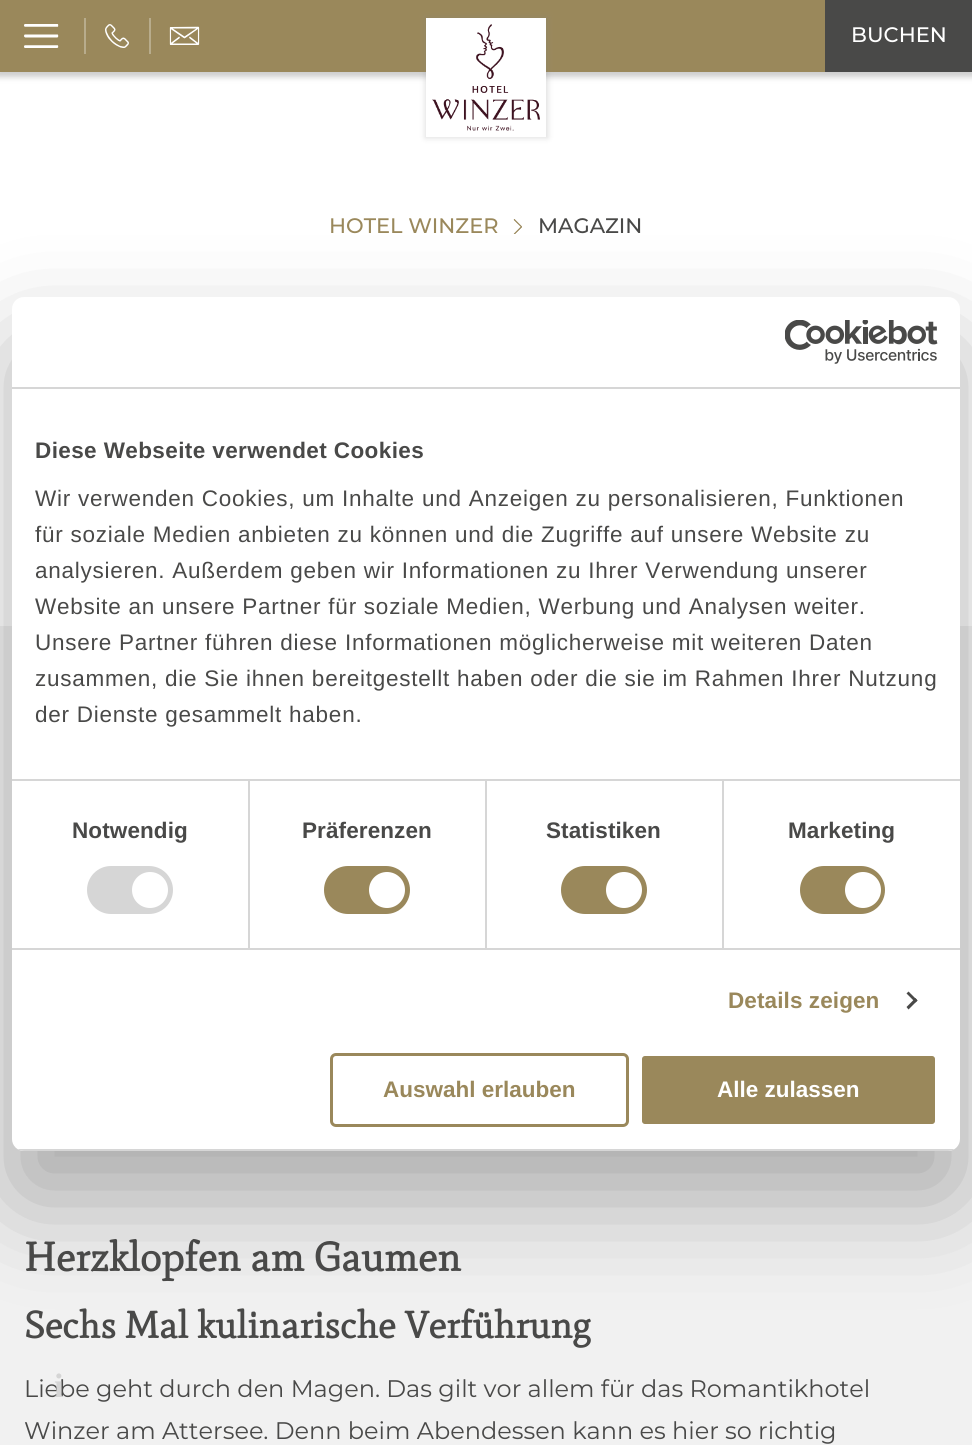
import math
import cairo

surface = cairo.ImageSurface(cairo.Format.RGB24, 972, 1445)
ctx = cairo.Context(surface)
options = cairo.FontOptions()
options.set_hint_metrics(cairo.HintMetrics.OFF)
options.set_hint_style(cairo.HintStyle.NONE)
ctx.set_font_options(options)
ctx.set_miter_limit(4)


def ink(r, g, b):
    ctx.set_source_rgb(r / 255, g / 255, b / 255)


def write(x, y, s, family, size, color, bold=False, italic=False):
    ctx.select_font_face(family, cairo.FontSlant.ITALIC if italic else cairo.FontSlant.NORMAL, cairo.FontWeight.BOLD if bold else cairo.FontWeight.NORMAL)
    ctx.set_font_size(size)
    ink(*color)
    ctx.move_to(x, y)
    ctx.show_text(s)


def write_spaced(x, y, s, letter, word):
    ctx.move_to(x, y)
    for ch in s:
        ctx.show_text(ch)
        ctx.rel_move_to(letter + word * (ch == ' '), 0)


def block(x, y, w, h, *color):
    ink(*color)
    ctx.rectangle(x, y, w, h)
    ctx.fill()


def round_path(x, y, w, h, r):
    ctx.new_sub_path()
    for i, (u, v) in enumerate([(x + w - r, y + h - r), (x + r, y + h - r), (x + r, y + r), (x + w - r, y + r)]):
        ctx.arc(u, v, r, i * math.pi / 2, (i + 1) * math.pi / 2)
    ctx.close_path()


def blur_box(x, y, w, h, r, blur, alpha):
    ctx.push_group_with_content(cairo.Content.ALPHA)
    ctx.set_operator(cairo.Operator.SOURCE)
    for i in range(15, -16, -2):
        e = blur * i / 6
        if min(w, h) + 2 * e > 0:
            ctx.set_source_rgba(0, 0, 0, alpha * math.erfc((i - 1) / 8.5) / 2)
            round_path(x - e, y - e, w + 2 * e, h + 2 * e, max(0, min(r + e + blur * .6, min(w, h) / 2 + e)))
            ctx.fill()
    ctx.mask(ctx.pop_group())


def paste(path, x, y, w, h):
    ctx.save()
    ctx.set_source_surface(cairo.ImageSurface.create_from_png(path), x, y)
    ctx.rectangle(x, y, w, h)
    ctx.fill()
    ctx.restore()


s1 = dict(family="Montserrat Medium", size=21, color=(255, 255, 255))
s2 = dict(family="Montserrat Medium", size=21, color=(154, 136, 91))
s3 = dict(family="Montserrat Medium", size=21, color=(73, 73, 72))
s4 = dict(family="Liberation Sans", size=22.5, color=(154, 136, 91), bold=True)
s5 = dict(family="Liberation Sans", size=22.5, color=(255, 255, 255), bold=True)
s6 = dict(family="Mate", size=40.5, color=(73, 73, 72), bold=True)
s7 = dict(family="Mate", size=37.5, color=(73, 73, 72), bold=True)
s8 = dict(family="Montserrat", size=24, color=(73, 73, 72))
s9 = dict(family="Liberation Serif", size=34, color=(213, 213, 213), bold=True)

ink(255, 255, 255)
ctx.paint()
ink(0, 0, 0)
blur_box(-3, -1, 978, 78, 0, 3, 0.2)
block(0, 0, 825, 72, 154, 136, 91)
paste("pic1.png", 24, 24, 35, 24)
ink(128, 128, 128)
blur_box(425, 17, 123, 121, 0, 3, 0.25)
block(426, 18, 120, 119, 255, 255, 255)
paste("pic2.png", 432, 24, 108, 107)
block(84, 18, 2, 36, 184, 172, 140)
paste("pic3.png", 105, 24, 24, 24)
block(149, 18, 2, 36, 184, 172, 140)
paste("pic4.png", 169, 26, 31, 19)
block(825, 0, 147, 72, 73, 73, 72)
write(851, 42, "BUCHEN", **s1)
write(329, 233, "HOTEL WINZER", **s2)
paste("pic5.png", 513, 219, 9, 15)
write(538, 233, "MAGAZIN", **s3)
block(0, 626, 972, 819, 241, 241, 241)
ink(0, 0, 0)
blur_box(12, 345, 948, 854, 12, 51, 0.3)
ink(255, 255, 255)
round_path(12, 297, 948, 854, 12)
ctx.fill()
block(12, 387, 948, 2, 214, 214, 214)
paste("pic6.png", 785, 320, 153, 44)
block(248, 780, 2, 168, 214, 214, 214)
block(485, 780, 2, 168, 214, 214, 214)
block(722, 780, 2, 168, 214, 214, 214)
block(12, 779, 948, 2, 214, 214, 214)
ctx.select_font_face("Liberation Sans", cairo.FontSlant.NORMAL, cairo.FontWeight.BOLD)
ctx.set_font_size(22.5)
ink(73, 73, 72)
write_spaced(35, 458, "Diese Webseite verwendet Cookies", 0.4, 0)
ctx.select_font_face("Liberation Sans")
write_spaced(35, 506, "Wir verwenden Cookies, um Inhalte und Anzeigen zu personalisieren, Funktionen", 0.75, 0)
write_spaced(35, 542, "für soziale Medien anbieten zu können und die Zugriffe auf unsere Website zu", 0.75, 0)
write_spaced(35, 578, "analysieren. Außerdem geben wir Informationen zu Ihrer Verwendung unserer", 0.75, 0)
write_spaced(35, 614, "Website an unsere Partner für soziale Medien, Werbung und Analysen weiter.", 0.75, 0)
write_spaced(35, 650, "Unsere Partner führen diese Informationen möglicherweise mit weiteren Daten", 0.75, 0)
write_spaced(35, 686, "zusammen, die Sie ihnen bereitgestellt haben oder die sie im Rahmen Ihrer Nutzung", 0.75, 0)
write_spaced(35, 722, "der Dienste gesammelt haben.", 0.75, 0)
block(12, 948, 948, 2, 214, 214, 214)
ctx.select_font_face("Liberation Sans", cairo.FontSlant.NORMAL, cairo.FontWeight.BOLD)
ink(73, 73, 72)
write_spaced(72, 838, "Notwendig", 0.1, 0)
ink(214, 214, 214)
round_path(87, 866, 86, 48, 24)
ctx.fill()
ink(255, 255, 255)
ctx.arc(150, 890, 18, 0, 2 * math.pi)
ctx.fill()
ink(73, 73, 72)
write_spaced(302, 838, "Präferenzen", 0.1, 0)
ink(154, 136, 91)
round_path(324, 866, 86, 48, 24)
ctx.fill()
ink(255, 255, 255)
ctx.arc(387, 890, 18, 0, 2 * math.pi)
ctx.fill()
ink(73, 73, 72)
write_spaced(546, 838, "Statistiken", 0.1, 0)
ink(154, 136, 91)
round_path(561, 866, 86, 48, 24)
ctx.fill()
ink(255, 255, 255)
ctx.arc(624, 890, 18, 0, 2 * math.pi)
ctx.fill()
ink(73, 73, 72)
write_spaced(788, 838, "Marketing", 0.1, 0)
ink(154, 136, 91)
round_path(800, 866, 85, 48, 24)
ctx.fill()
ink(255, 255, 255)
ctx.arc(863, 890, 18, 0, 2 * math.pi)
ctx.fill()
ink(154, 136, 91)
write_spaced(728, 1008, "Details zeigen", 0.1, 0)
ink(73, 73, 72)
ctx.new_path()
ctx.move_to(908.5, 991.5)
ctx.line_to(917.5, 1000.5)
ctx.line_to(915.5, 1002.5)
ctx.line_to(906.5, 993.5)
ctx.close_path()
ctx.fill()
ctx.new_path()
ctx.move_to(915.5, 998)
ctx.line_to(917.5, 1000.5)
ctx.line_to(908.5, 1009.5)
ctx.line_to(906.5, 1007)
ctx.close_path()
ctx.fill()
ctx.save()
round_path(12, 297, 948, 854, 12)
ctx.clip()
block(12, 1149, 948, 2, 214, 214, 214)
ctx.restore()
round_path(331.5, 1054.5, 296, 71, 4.5)
ink(154, 136, 91)
ctx.set_line_width(3)
ctx.stroke()
write(383, 1097, "Auswahl erlauben", **s4)
round_path(640.5, 1054.5, 296, 71, 4.5)
ctx.fill_preserve()
ink(255, 255, 255)
ctx.stroke()
write(717, 1097, "Alle zulassen", **s5)
write(24, 1271, "Herzklopfen am Gaumen", **s6)
write(24, 1338, "Sechs Mal kulinarische Verführung", **s7)
write(24, 1397, "Liebe geht durch den Magen. Das gilt vor allem für das Romantikhotel", **s8)
write(24, 1439, "Winzer am Attersee. Denn beim Abendessen kann es hier so richtig", **s8)
write(54, 1397, "i", **s9)
surface.write_to_png("screenshot.png")
